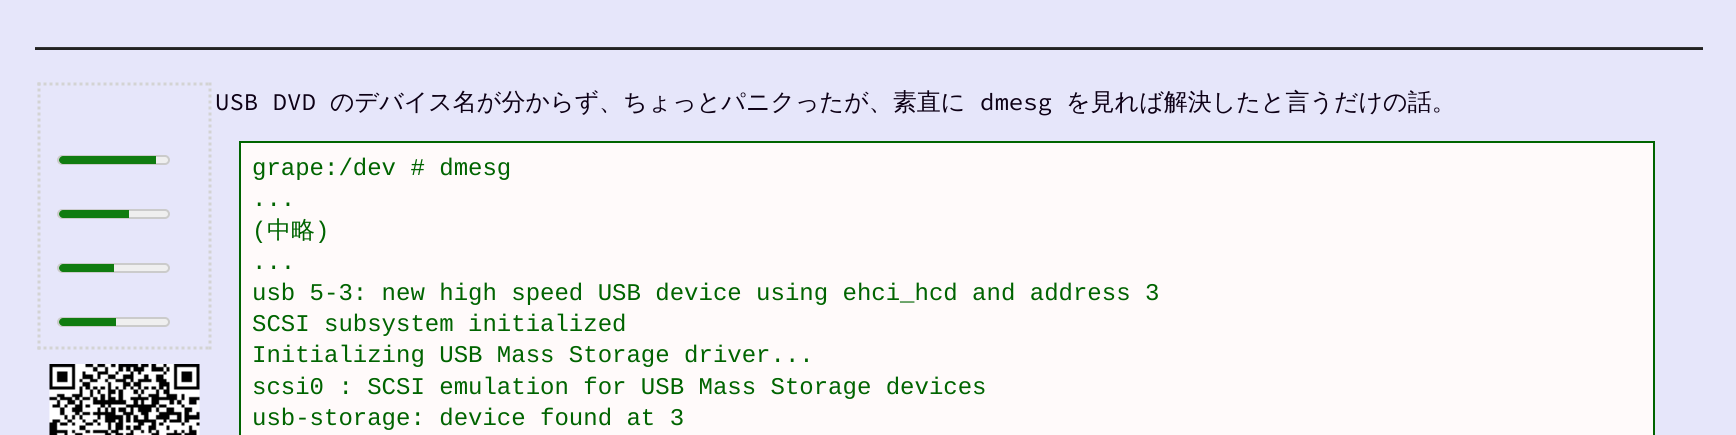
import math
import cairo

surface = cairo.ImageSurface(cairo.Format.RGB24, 1736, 435)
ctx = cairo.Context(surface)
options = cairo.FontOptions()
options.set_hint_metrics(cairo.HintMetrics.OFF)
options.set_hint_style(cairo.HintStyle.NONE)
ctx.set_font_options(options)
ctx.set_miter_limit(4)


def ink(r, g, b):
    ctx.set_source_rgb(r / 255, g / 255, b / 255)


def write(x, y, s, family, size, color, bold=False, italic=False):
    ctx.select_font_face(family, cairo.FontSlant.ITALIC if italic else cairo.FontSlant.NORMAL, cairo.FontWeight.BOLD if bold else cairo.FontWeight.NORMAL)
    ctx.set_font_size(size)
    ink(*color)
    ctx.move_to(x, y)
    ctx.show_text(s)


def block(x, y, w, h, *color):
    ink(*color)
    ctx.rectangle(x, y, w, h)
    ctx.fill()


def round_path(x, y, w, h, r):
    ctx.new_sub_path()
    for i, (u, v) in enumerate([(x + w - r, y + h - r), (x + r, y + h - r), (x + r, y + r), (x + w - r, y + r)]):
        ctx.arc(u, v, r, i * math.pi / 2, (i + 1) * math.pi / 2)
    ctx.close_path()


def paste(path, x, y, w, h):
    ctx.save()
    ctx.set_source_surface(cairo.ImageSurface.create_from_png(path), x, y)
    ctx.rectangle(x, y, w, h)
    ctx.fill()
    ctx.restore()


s1 = dict(family="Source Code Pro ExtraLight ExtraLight", size=24, color=(13, 0, 21))
s2 = dict(family="WenQuanYi Zen Hei Medium", size=24, color=(13, 0, 21))
s3 = dict(family="Liberation Mono", size=24, color=(0, 100, 0))
s4 = dict(family="WenQuanYi Zen Hei Medium", size=24, color=(0, 100, 0))

ink(230, 230, 250)
ctx.paint()
block(35, 47, 1668, 1, 51, 51, 51)
block(35, 48, 1668, 2, 34, 34, 34)
ctx.new_path()
ctx.move_to(37.5, 84)
ctx.line_to(211.5, 84)
ink(211, 211, 211)
ctx.set_line_width(3)
ctx.set_dash([3, 3])
ctx.stroke()
ctx.new_path()
ctx.move_to(210, 82.5)
ctx.line_to(210, 349.5)
ctx.stroke()
ctx.new_path()
ctx.move_to(37.5, 348)
ctx.line_to(211.5, 348)
ctx.stroke()
ctx.new_path()
ctx.move_to(39, 82.5)
ctx.line_to(39, 349.5)
ctx.stroke()
ink(239, 239, 239)
round_path(57, 155, 113, 10, 5)
ctx.fill()
round_path(58, 156, 111, 8, 4)
ctx.set_source_rgba(0.463, 0.463, 0.463, 0.3)
ctx.set_line_width(2)
ctx.set_dash([])
ctx.stroke()
ink(16, 124, 16)
ctx.new_path()
ctx.move_to(63, 156)
ctx.line_to(156, 156)
ctx.line_to(156, 164)
ctx.line_to(63, 164)
ctx.curve_to(61, 164, 59, 162, 59, 160)
ctx.curve_to(59, 158, 61, 156, 63, 156)
ctx.close_path()
ctx.fill()
ink(239, 239, 239)
round_path(57, 209, 113, 10, 5)
ctx.fill()
round_path(58, 210, 111, 8, 4)
ctx.set_source_rgba(0.463, 0.463, 0.463, 0.3)
ctx.stroke()
ink(16, 124, 16)
ctx.new_path()
ctx.move_to(63, 210)
ctx.line_to(129, 210)
ctx.line_to(129, 218)
ctx.line_to(63, 218)
ctx.curve_to(61, 218, 59, 216, 59, 214)
ctx.curve_to(59, 212, 61, 210, 63, 210)
ctx.close_path()
ctx.fill()
ink(239, 239, 239)
round_path(57, 263, 113, 10, 5)
ctx.fill()
round_path(58, 264, 111, 8, 4)
ctx.set_source_rgba(0.463, 0.463, 0.463, 0.3)
ctx.stroke()
ink(16, 124, 16)
ctx.new_path()
ctx.move_to(63, 264)
ctx.line_to(114, 264)
ctx.line_to(114, 272)
ctx.line_to(63, 272)
ctx.curve_to(61, 272, 59, 270, 59, 268)
ctx.curve_to(59, 266, 61, 264, 63, 264)
ctx.close_path()
ctx.fill()
ink(239, 239, 239)
round_path(57, 317, 113, 10, 5)
ctx.fill()
round_path(58, 318, 111, 8, 4)
ctx.set_source_rgba(0.463, 0.463, 0.463, 0.3)
ctx.stroke()
ink(16, 124, 16)
ctx.new_path()
ctx.move_to(63, 318)
ctx.line_to(116, 318)
ctx.line_to(116, 326)
ctx.line_to(63, 326)
ctx.curve_to(61, 326, 59, 324, 59, 322)
ctx.curve_to(59, 320, 61, 318, 63, 318)
ctx.close_path()
ctx.fill()
paste("pic1.png", 49, 364, 151, 71)
write(215, 110, "USB DVD", **s1)
write(330, 110, "のデバイス名が分からず、ちょっとパニクったが、素直に", **s2)
write(980, 110, "dmesg", **s1)
write(1066, 110, "を見れば解決したと言うだけの話。", **s2)
ink(255, 250, 250)
ctx.rectangle(240, 142, 1414, 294)
ctx.fill_preserve()
ink(0, 100, 0)
ctx.stroke()
write(252, 175, "grape:/dev # dmesg", **s3)
write(252, 206, "...", **s3)
write(252, 238, "(", **s3)
write(267, 238, "中略", **s4)
write(315, 238, ")", **s3)
write(252, 269, "...", **s3)
write(252, 300, "usb 5-3: new high speed USB device using ehci_hcd and address 3", **s3)
write(252, 331, "SCSI subsystem initialized", **s3)
write(252, 362, "Initializing USB Mass Storage driver...", **s3)
write(252, 394, "scsi0 : SCSI emulation for USB Mass Storage devices", **s3)
write(252, 425, "usb-storage: device found at 3", **s3)
surface.write_to_png("screenshot.png")
